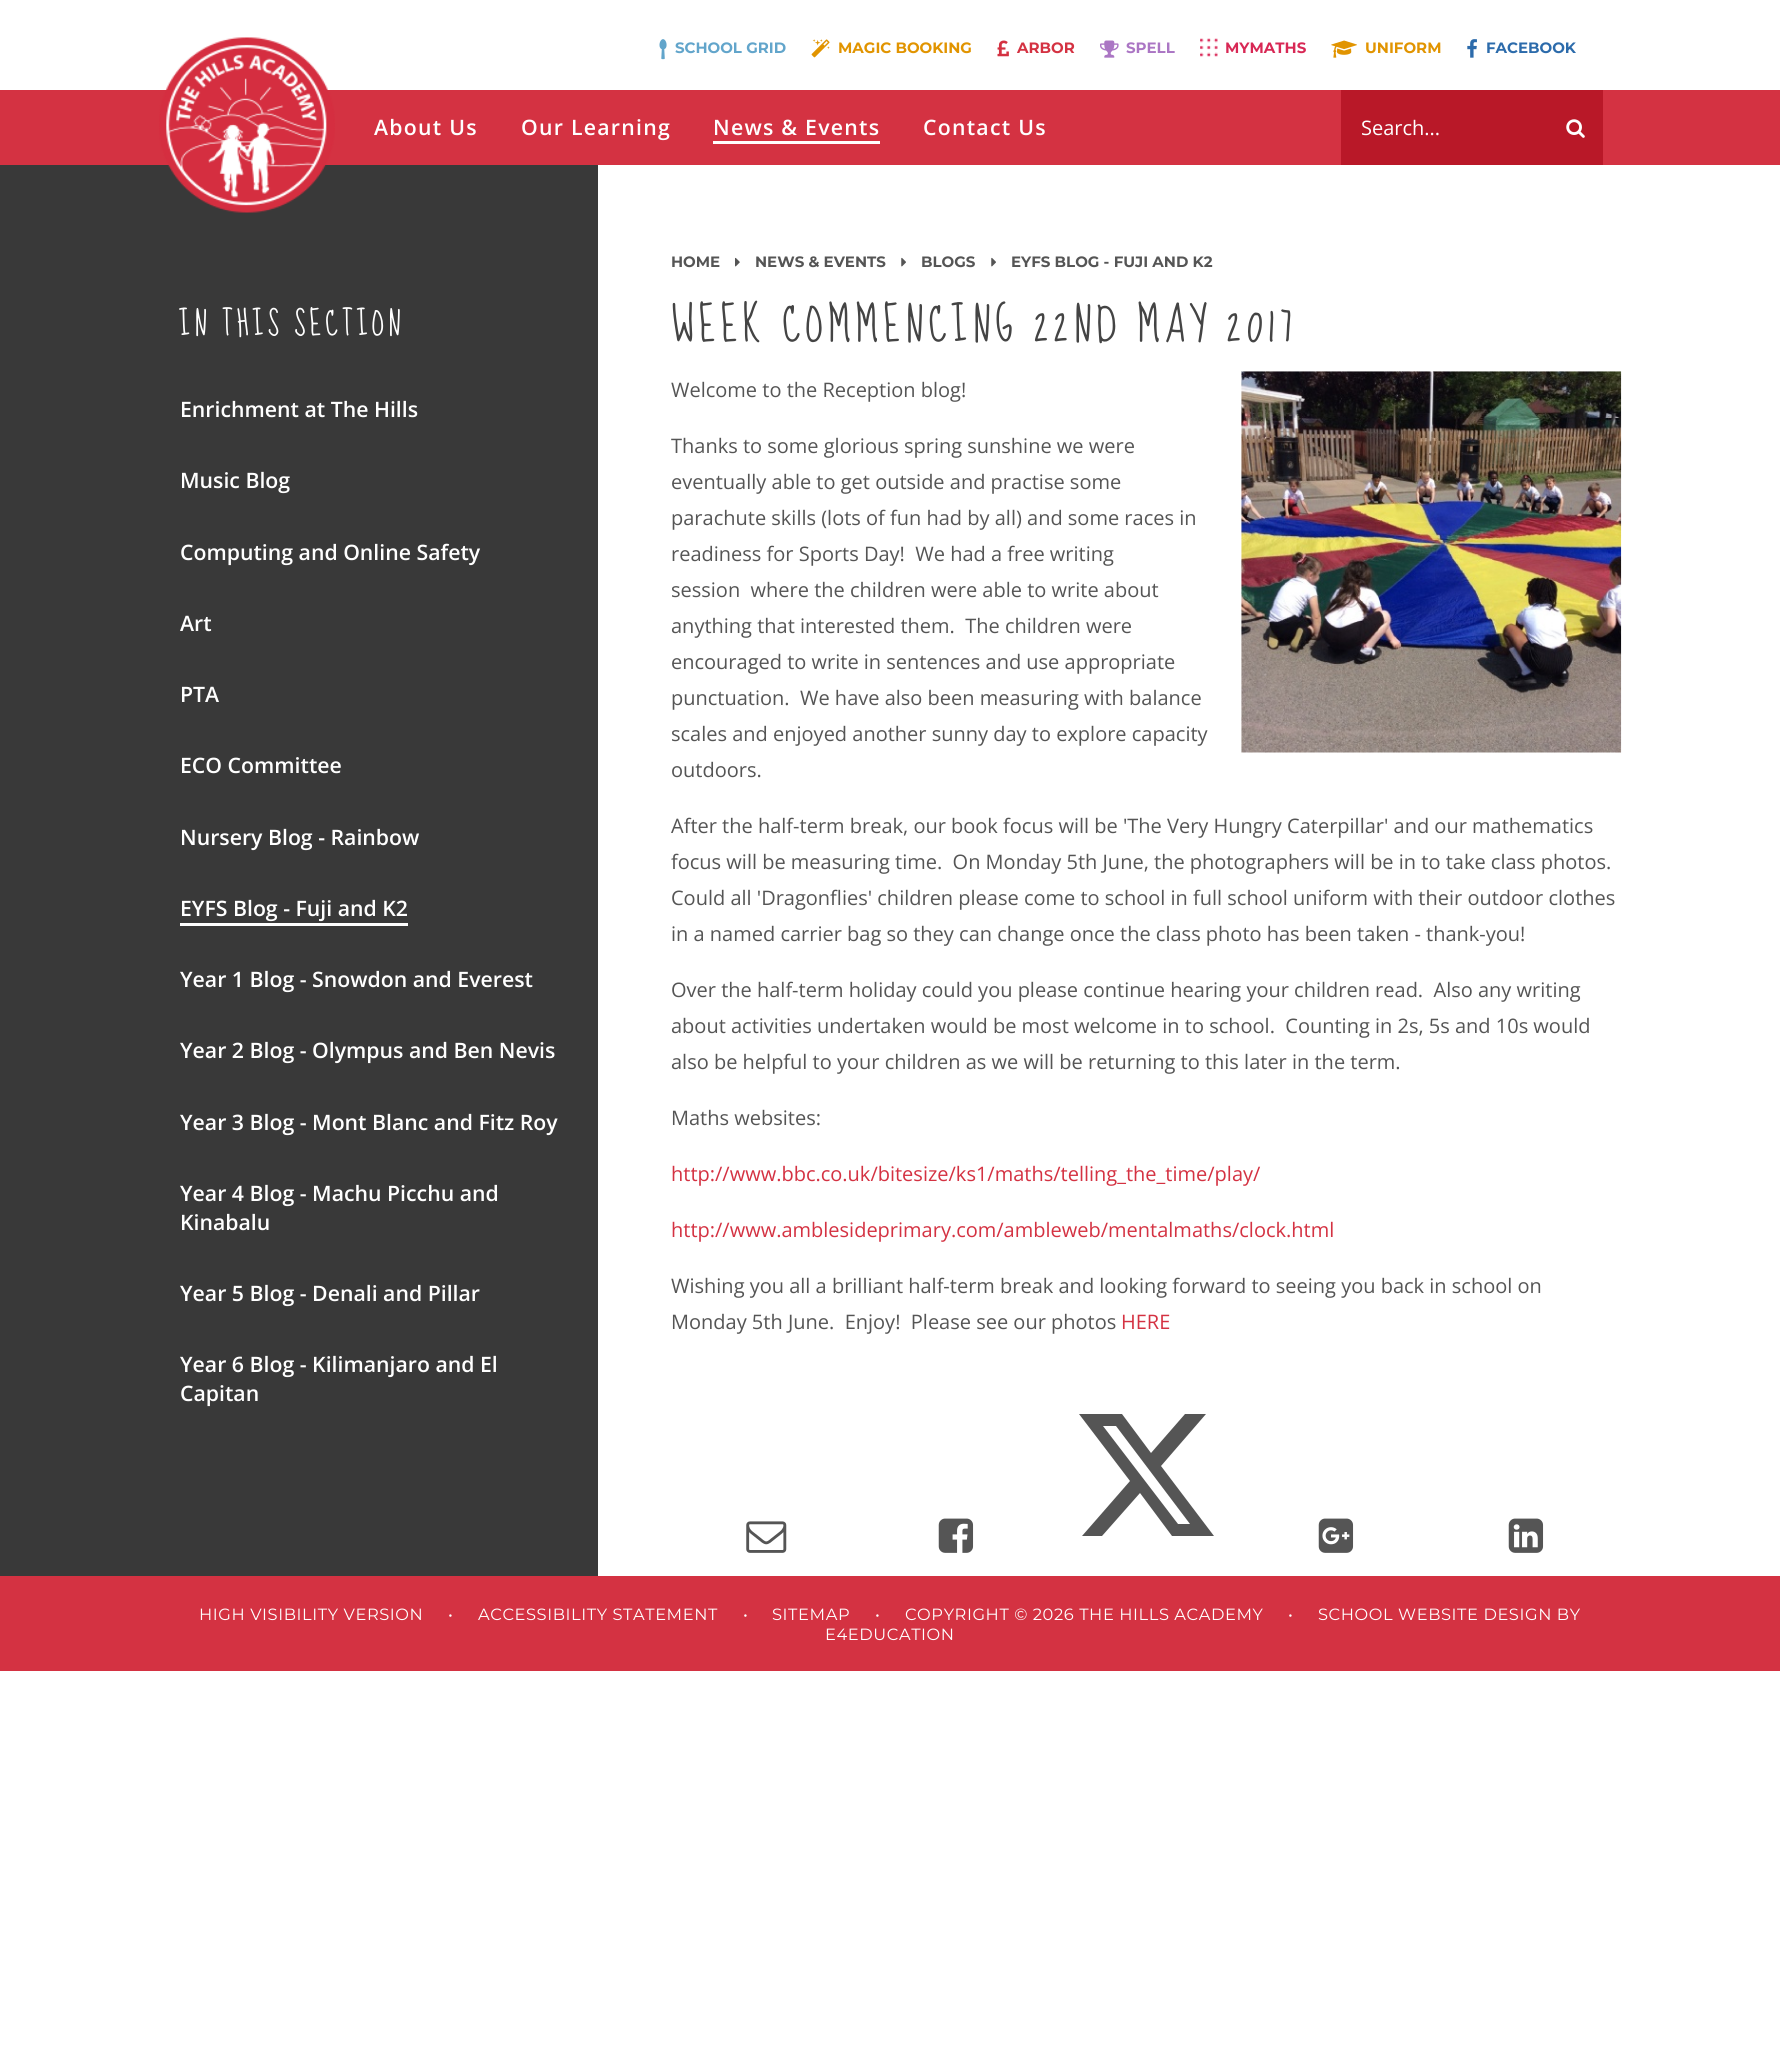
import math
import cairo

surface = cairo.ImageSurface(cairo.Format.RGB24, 1780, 2066)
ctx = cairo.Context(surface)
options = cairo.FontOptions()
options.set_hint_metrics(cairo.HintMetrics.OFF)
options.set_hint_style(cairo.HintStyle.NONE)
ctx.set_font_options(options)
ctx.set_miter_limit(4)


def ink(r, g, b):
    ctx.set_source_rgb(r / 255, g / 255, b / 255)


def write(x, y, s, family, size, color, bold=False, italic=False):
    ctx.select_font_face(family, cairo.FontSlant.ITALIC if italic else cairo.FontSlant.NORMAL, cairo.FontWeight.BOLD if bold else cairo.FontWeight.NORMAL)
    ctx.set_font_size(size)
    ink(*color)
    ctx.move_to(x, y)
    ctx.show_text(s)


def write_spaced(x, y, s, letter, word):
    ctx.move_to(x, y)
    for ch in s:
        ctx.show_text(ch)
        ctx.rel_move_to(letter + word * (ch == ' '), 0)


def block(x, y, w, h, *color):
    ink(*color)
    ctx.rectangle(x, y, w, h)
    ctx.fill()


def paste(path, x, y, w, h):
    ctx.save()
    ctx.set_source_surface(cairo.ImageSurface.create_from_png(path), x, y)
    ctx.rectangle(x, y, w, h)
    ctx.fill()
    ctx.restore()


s1 = dict(family="Montserrat", size=15, color=(98, 165, 203), bold=True)
s2 = dict(family="Montserrat", size=15, color=(225, 148, 0), bold=True)
s3 = dict(family="Montserrat", size=15, color=(212, 50, 66), bold=True)
s4 = dict(family="Montserrat", size=15, color=(171, 118, 196), bold=True)
s5 = dict(family="Montserrat", size=15, color=(216, 40, 85), bold=True)
s6 = dict(family="Montserrat", size=15, color=(44, 107, 171), bold=True)
s7 = dict(family="Open Sans", size=20, color=(255, 255, 255))
s8 = dict(family="Open Sans SemiBold", size=21.25, color=(255, 255, 255))
s9 = dict(family="Montserrat", size=15, color=(85, 85, 85), bold=True)
s10 = dict(family="Open Sans", size=20, color=(85, 85, 85))
s11 = dict(family="Open Sans", size=20, color=(212, 50, 66))

ink(255, 255, 255)
ctx.paint()
paste("pic1.png", 659, 39, 8, 21)
write(675, 53, "SCHOOL GRID", **s1)
paste("pic2.png", 811, 39, 19, 19)
write(838, 53, "MAGIC BOOKING", **s2)
paste("pic3.png", 997, 40, 12, 17)
write(1017, 53, "ARBOR", **s3)
paste("pic4.png", 1100, 40, 19, 18)
write(1126, 53, "SPELL", **s4)
paste("pic5.png", 1200, 38, 18, 19)
write(1225, 53, "MYMATHS", **s5)
paste("pic6.png", 1331, 40, 26, 18)
write(1365, 53, "UNIFORM", **s2)
paste("pic7.png", 1467, 39, 10, 19)
write(1486, 53, "FACEBOOK", **s6)
block(0, 90, 1780, 75, 212, 50, 66)
block(0, 165, 598, 1411, 57, 57, 57)
paste("pic8.png", 159, 37, 176, 176)
ctx.select_font_face("Open Sans SemiBold")
ctx.set_font_size(21.25)
ink(255, 255, 255)
write_spaced(374, 135, "About Us", 1.25, 0)
write_spaced(521, 135, "Our Learning", 1.25, 0)
write_spaced(713, 135, "News & Events", 1.25, 0)
block(713, 141, 167, 3, 255, 255, 255)
write_spaced(923, 135, "Contact Us", 1.25, 0)
block(1341, 90, 262, 75, 185, 24, 40)
write(1361, 135, "Search...", **s7)
paste("pic9.png", 1566, 119, 19, 19)
ctx.select_font_face("Sue Ellen Francisco")
ctx.set_font_size(30)
write_spaced(179, 335, "IN THIS SECTION", 3.75, 0)
write(180, 417, "Enrichment at The Hills", **s8)
write(180, 488, "Music Blog", **s8)
write(180, 560, "Computing and Online Safety", **s8)
write(180, 631, "Art", **s8)
write(180, 702, "PTA", **s8)
write(180, 773, "ECO Committee", **s8)
write(180, 845, "Nursery Blog - Rainbow", **s8)
write(180, 916, "EYFS Blog - Fuji and K2", **s8)
block(180, 923, 228, 3, 255, 255, 255)
write(180, 987, "Year 1 Blog - Snowdon and Everest", **s8)
write(180, 1058, "Year 2 Blog - Olympus and Ben Nevis", **s8)
write(180, 1130, "Year 3 Blog - Mont Blanc and Fitz Roy", **s8)
write(180, 1201, "Year 4 Blog - Machu Picchu and", **s8)
write(180, 1230, "Kinabalu", **s8)
write(180, 1301, "Year 5 Blog - Denali and Pillar", **s8)
write(180, 1372, "Year 6 Blog - Kilimanjaro and El", **s8)
write(180, 1401, "Capitan", **s8)
write(671, 267, "HOME", **s9)
paste("pic10.png", 735, 257, 5, 10)
write(755, 267, "NEWS & EVENTS", **s9)
paste("pic11.png", 901, 257, 5, 10)
write(921, 267, "BLOGS", **s9)
paste("pic11.png", 991, 257, 5, 10)
write(1011, 267, "EYFS BLOG - FUJI AND K2", **s9)
ctx.select_font_face("Sue Ellen Francisco")
ctx.set_font_size(42.5)
ink(68, 68, 68)
write_spaced(671, 341, "WEEK COMMENCING 22ND MAY 2017", 5, 0)
write(671, 397, "Welcome to the Reception blog!", **s10)
paste("pic12.png", 1241, 371, 381, 382)
write(671, 453, "Thanks to some glorious spring sunshine we were", **s10)
write(671, 489, "eventually able to get outside and practise some", **s10)
write(671, 525, "parachute skills (lots of fun had by all) and some races in", **s10)
write(671, 561, "readiness for Sports Day!  We had a free writing", **s10)
write(671, 597, "session  where the children were able to write about", **s10)
write(671, 633, "anything that interested them.  The children were", **s10)
write(671, 669, "encouraged to write in sentences and use appropriate", **s10)
write(671, 705, "punctuation.  We have also been measuring with balance", **s10)
write(671, 741, "scales and enjoyed another sunny day to explore capacity", **s10)
write(671, 777, "outdoors.", **s10)
write(671, 833, "After the half-term break, our book focus will be 'The Very Hungry Caterpillar' and our mathematics", **s10)
write(671, 869, "focus will be measuring time.  On Monday 5th June, the photographers will be in to take class photos.", **s10)
write(671, 905, "Could all 'Dragonflies' children please come to school in full school uniform with their outdoor clothes", **s10)
write(671, 941, "in a named carrier bag so they can change once the class photo has been taken - thank-you!", **s10)
write(671, 997, "Over the half-term holiday could you please continue hearing your children read.  Also any writing", **s10)
write(671, 1033, "about activities undertaken would be most welcome in to school.  Counting in 2s, 5s and 10s would", **s10)
write(671, 1069, "also be helpful to your children as we will be returning to this later in the term.", **s10)
write(671, 1125, "Maths websites:", **s10)
write(671, 1181, "http://www.bbc.co.uk/bitesize/ks1/maths/telling_the_time/play/", **s11)
write(671, 1237, "http://www.amblesideprimary.com/ambleweb/mentalmaths/clock.html", **s11)
write(671, 1293, "Wishing you all a brilliant half-term break and looking forward to seeing you back in school on", **s10)
write(671, 1329, "Monday 5th June.  Enjoy!  Please see our photos", **s10)
write(1121, 1329, "HERE", **s11)
paste("pic13.png", 746, 1521, 41, 32)
paste("pic14.png", 938, 1518, 36, 35)
ink(85, 85, 85)
ctx.new_path()
ctx.move_to(1185, 1414)
ctx.line_to(1206, 1414)
ctx.line_to(1161, 1466)
ctx.line_to(1214, 1536)
ctx.line_to(1172, 1536)
ctx.line_to(1140, 1493)
ctx.line_to(1102, 1536)
ctx.line_to(1082, 1536)
ctx.line_to(1130, 1481)
ctx.line_to(1079, 1414)
ctx.line_to(1122, 1414)
ctx.line_to(1151, 1453)
ctx.close_path()
ctx.move_to(1178, 1524)
ctx.line_to(1190, 1524)
ctx.line_to(1116, 1426)
ctx.line_to(1103, 1426)
ctx.close_path()
ctx.fill()
paste("pic15.png", 1318, 1518, 36, 35)
paste("pic16.png", 1508, 1518, 36, 35)
block(0, 1576, 1780, 95, 212, 50, 66)
ctx.select_font_face("Montserrat")
ctx.set_font_size(16.25)
ink(255, 255, 255)
write_spaced(199, 1620, "HIGH VISIBILITY VERSION", 0.6, 0)
write_spaced(448, 1620, "•", 0.6, 0)
write_spaced(478, 1620, "ACCESSIBILITY STATEMENT", 0.6, 0)
write_spaced(743, 1620, "•", 0.6, 0)
write_spaced(772, 1620, "SITEMAP", 0.6, 0)
write_spaced(875, 1620, "•", 0.6, 0)
write_spaced(905, 1620, "COPYRIGHT © 2026 THE HILLS ACADEMY", 0.6, 0)
write_spaced(1288, 1620, "•", 0.6, 0)
write_spaced(1318, 1620, "SCHOOL WEBSITE DESIGN BY", 0.6, 0)
write_spaced(825, 1640, "E4EDUCATION", 0.6, 0)
surface.write_to_png("screenshot.png")
